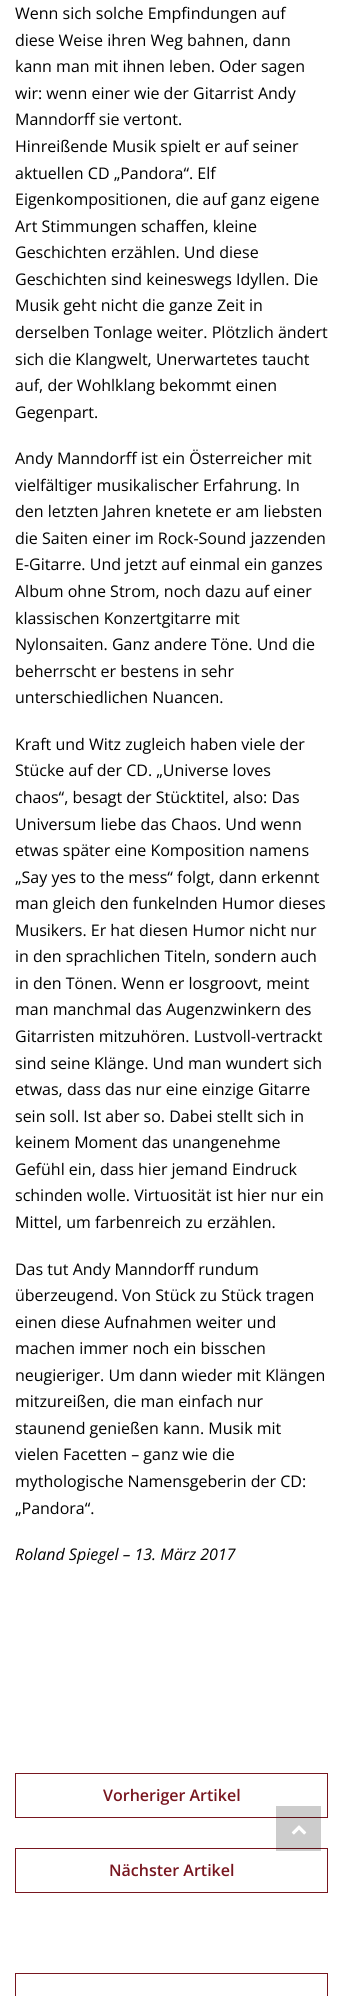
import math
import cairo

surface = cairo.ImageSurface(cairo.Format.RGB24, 343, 1996)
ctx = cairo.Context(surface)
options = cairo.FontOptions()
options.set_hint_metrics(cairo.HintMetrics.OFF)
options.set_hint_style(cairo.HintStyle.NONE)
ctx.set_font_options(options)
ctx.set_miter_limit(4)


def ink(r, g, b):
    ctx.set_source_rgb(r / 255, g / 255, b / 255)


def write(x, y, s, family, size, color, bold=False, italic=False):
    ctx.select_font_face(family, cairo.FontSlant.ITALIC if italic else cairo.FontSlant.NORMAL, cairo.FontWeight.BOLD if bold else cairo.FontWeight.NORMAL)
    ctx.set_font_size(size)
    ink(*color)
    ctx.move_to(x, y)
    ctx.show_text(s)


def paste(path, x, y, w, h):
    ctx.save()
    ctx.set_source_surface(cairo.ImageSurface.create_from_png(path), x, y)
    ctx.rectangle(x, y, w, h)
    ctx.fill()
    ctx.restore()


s1 = dict(family="Open Sans", size=16, color=(0, 0, 0))
s2 = dict(family="Open Sans", size=16, color=(0, 0, 0), italic=True)
s3 = dict(family="Open Sans SemiBold", size=16, color=(120, 22, 31))

ink(255, 255, 255)
ctx.paint()
write(15, 19, "Wenn sich solche Empfindungen auf", **s1)
write(15, 46, "diese Weise ihren Weg bahnen, dann", **s1)
write(15, 72, "kann man mit ihnen leben. Oder sagen", **s1)
write(15, 99, "wir: wenn einer wie der Gitarrist Andy", **s1)
write(15, 125, "Manndorff sie vertont.", **s1)
write(15, 152, "Hinreißende Musik spielt er auf seiner", **s1)
write(15, 179, "aktuellen CD „Pandora“. Elf", **s1)
write(15, 205, "Eigenkompositionen, die auf ganz eigene", **s1)
write(15, 232, "Art Stimmungen schaffen, kleine", **s1)
write(15, 258, "Geschichten erzählen. Und diese", **s1)
write(15, 285, "Geschichten sind keineswegs Idyllen. Die", **s1)
write(15, 311, "Musik geht nicht die ganze Zeit in", **s1)
write(15, 338, "derselben Tonlage weiter. Plötzlich ändert", **s1)
write(15, 365, "sich die Klangwelt, Unerwartetes taucht", **s1)
write(15, 391, "auf, der Wohlklang bekommt einen", **s1)
write(15, 418, "Gegenpart.", **s1)
write(15, 464, "Andy Manndorff ist ein Österreicher mit", **s1)
write(15, 491, "vielfältiger musikalischer Erfahrung. In", **s1)
write(15, 517, "den letzten Jahren knetete er am liebsten", **s1)
write(15, 544, "die Saiten einer im Rock-Sound jazzenden", **s1)
write(15, 570, "E-Gitarre. Und jetzt auf einmal ein ganzes", **s1)
write(15, 597, "Album ohne Strom, noch dazu auf einer", **s1)
write(15, 624, "klassischen Konzertgitarre mit", **s1)
write(15, 650, "Nylonsaiten. Ganz andere Töne. Und die", **s1)
write(15, 677, "beherrscht er bestens in sehr", **s1)
write(15, 703, "unterschiedlichen Nuancen.", **s1)
write(15, 750, "Kraft und Witz zugleich haben viele der", **s1)
write(15, 776, "Stücke auf der CD. „Universe loves", **s1)
write(15, 803, "chaos“, besagt der Stücktitel, also: Das", **s1)
write(15, 830, "Universum liebe das Chaos. Und wenn", **s1)
write(15, 856, "etwas später eine Komposition namens", **s1)
write(15, 883, "„Say yes to the mess“ folgt, dann erkennt", **s1)
write(15, 909, "man gleich den funkelnden Humor dieses", **s1)
write(15, 936, "Musikers. Er hat diesen Humor nicht nur", **s1)
write(15, 962, "in den sprachlichen Titeln, sondern auch", **s1)
write(15, 989, "in den Tönen. Wenn er losgroovt, meint", **s1)
write(15, 1015, "man manchmal das Augenzwinkern des", **s1)
write(15, 1042, "Gitarristen mitzuhören. Lustvoll-vertrackt", **s1)
write(15, 1069, "sind seine Klänge. Und man wundert sich", **s1)
write(15, 1095, "etwas, dass das nur eine einzige Gitarre", **s1)
write(15, 1122, "sein soll. Ist aber so. Dabei stellt sich in", **s1)
write(15, 1148, "keinem Moment das unangenehme", **s1)
write(15, 1175, "Gefühl ein, dass hier jemand Eindruck", **s1)
write(15, 1201, "schinden wolle. Virtuosität ist hier nur ein", **s1)
write(15, 1228, "Mittel, um farbenreich zu erzählen.", **s1)
write(15, 1275, "Das tut Andy Manndorff rundum", **s1)
write(15, 1301, "überzeugend. Von Stück zu Stück tragen", **s1)
write(15, 1328, "einen diese Aufnahmen weiter und", **s1)
write(15, 1354, "machen immer noch ein bisschen", **s1)
write(15, 1381, "neugieriger. Um dann wieder mit Klängen", **s1)
write(15, 1407, "mitzureißen, die man einfach nur", **s1)
write(15, 1434, "staunend genießen kann. Musik mit", **s1)
write(15, 1460, "vielen Facetten – ganz wie die", **s1)
write(15, 1487, "mythologische Namensgeberin der CD:", **s1)
write(15, 1514, "„Pandora“.", **s1)
write(15, 1560, "Roland Spiegel – 13. März 2017", **s2)
ctx.rectangle(15.5, 1773.5, 312, 44)
ink(120, 22, 31)
ctx.set_line_width(1)
ctx.stroke()
write(103, 1801, "Vorheriger Artikel", **s3)
ctx.rectangle(15.5, 1848.5, 312, 44)
ctx.stroke()
write(109, 1876, "Nächster Artikel", **s3)
ctx.rectangle(15.5, 1973.5, 312, 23)
ctx.stroke()
ctx.set_source_rgba(0, 0, 0, 0.2)
ctx.rectangle(276, 1806, 45, 45)
ctx.fill()
paste("pic1.png", 291, 1825, 16, 10)
surface.write_to_png("screenshot.png")
